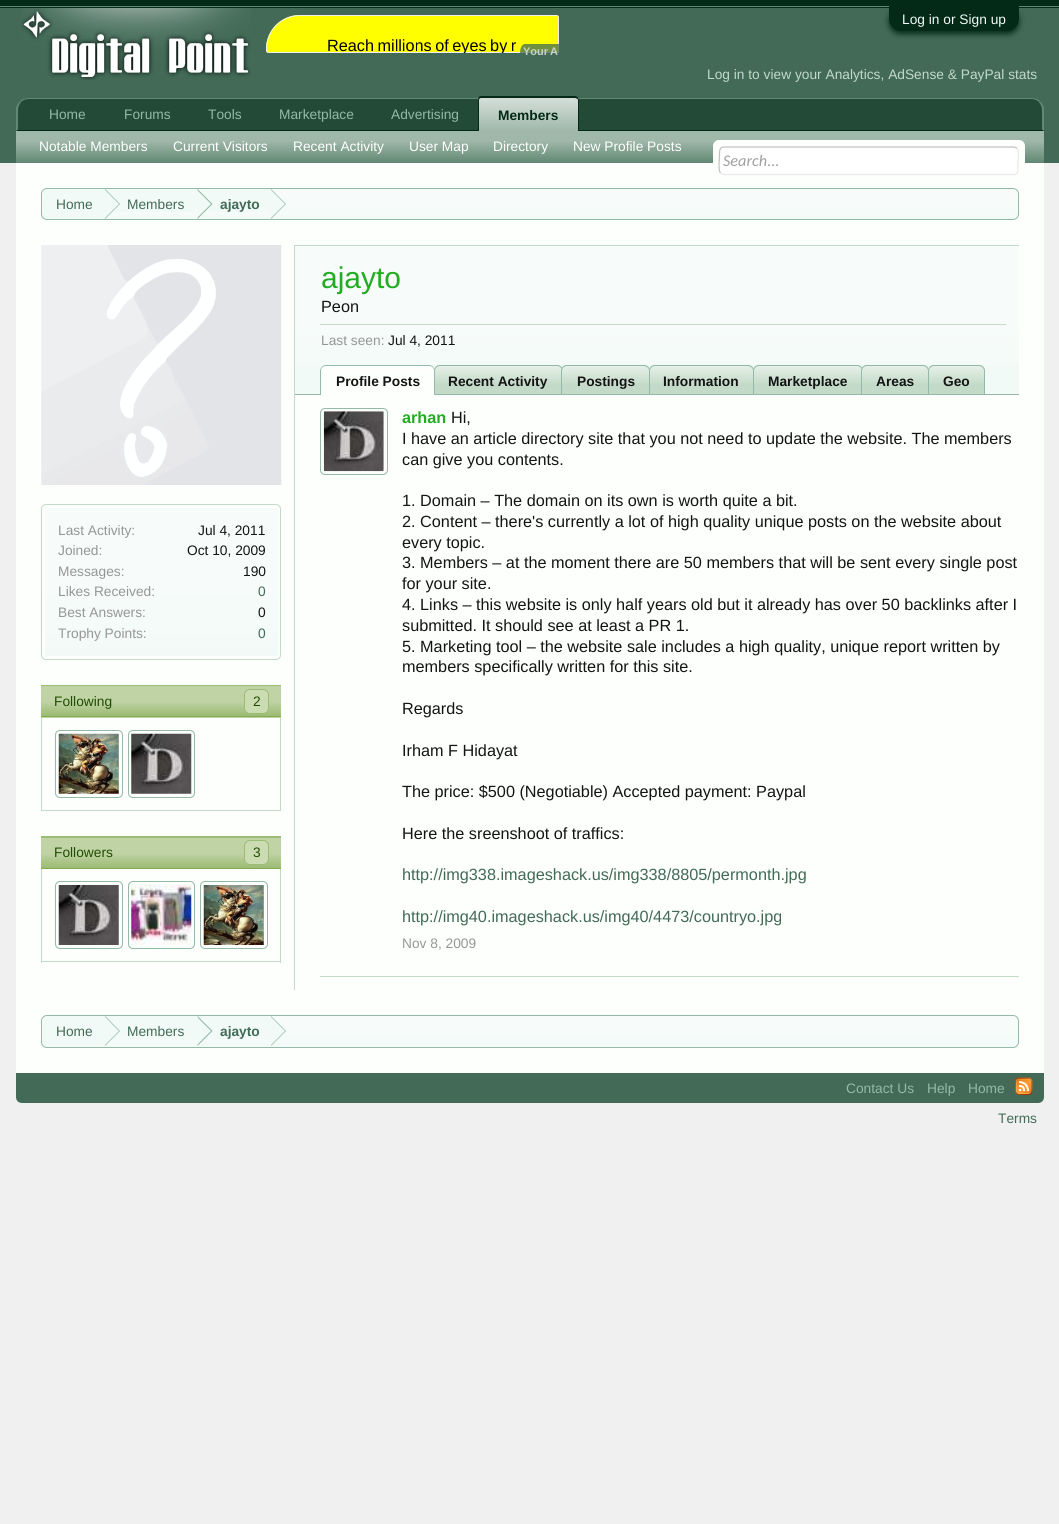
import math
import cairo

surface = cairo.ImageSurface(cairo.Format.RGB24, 1059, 1524)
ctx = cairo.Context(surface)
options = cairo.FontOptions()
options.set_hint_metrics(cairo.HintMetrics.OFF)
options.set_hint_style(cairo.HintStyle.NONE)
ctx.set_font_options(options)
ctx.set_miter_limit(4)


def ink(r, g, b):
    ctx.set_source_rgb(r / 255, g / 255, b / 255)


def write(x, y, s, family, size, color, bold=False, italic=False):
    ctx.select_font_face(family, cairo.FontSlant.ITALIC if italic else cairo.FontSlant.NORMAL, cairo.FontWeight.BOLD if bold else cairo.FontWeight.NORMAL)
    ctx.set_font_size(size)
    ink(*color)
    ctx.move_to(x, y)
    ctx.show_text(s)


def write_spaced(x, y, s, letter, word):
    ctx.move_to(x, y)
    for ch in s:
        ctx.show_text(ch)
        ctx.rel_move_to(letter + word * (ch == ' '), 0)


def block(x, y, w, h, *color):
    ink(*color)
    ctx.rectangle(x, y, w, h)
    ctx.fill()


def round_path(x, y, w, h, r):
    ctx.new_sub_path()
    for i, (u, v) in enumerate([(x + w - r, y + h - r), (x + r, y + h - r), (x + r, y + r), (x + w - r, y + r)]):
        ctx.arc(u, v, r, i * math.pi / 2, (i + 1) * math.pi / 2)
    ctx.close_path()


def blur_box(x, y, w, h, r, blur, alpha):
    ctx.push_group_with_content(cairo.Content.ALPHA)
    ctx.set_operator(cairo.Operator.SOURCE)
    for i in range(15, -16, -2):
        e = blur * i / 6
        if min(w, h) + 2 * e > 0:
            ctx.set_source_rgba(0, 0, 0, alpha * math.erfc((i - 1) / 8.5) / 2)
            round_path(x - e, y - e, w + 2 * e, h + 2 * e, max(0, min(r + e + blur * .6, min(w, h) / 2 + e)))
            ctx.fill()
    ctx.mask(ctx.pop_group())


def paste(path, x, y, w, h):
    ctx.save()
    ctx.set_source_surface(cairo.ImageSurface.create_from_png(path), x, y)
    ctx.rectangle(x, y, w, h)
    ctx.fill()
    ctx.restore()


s1 = dict(family="Liberation Sans", size=13.75, color=(242, 250, 247))
s2 = dict(family="Liberation Sans", size=13.75, color=(194, 218, 199))
s3 = dict(family="Liberation Sans", size=13.75, color=(146, 186, 167))
s4 = dict(family="Liberation Sans", size=13.75, color=(2, 42, 23), bold=True)
s5 = dict(family="Liberation Sans", size=13.75, color=(255, 255, 255))
s6 = dict(family="Carlito", size=16.25, color=(160, 160, 160), italic=True)
s7 = dict(family="Liberation Sans", size=13.75, color=(66, 106, 87))
s8 = dict(family="Liberation Sans", size=13.75, color=(66, 106, 87), bold=True)
s9 = dict(family="Liberation Sans", size=13.75, color=(150, 150, 150))
s10 = dict(family="Liberation Sans", size=13.75, color=(20, 20, 20))
s11 = dict(family="Liberation Sans", size=13.75, color=(31, 77, 0))
s12 = dict(family="Liberation Sans", size=30, color=(34, 172, 34))
s13 = dict(family="Liberation Sans", size=16.25, color=(20, 20, 20))
s14 = dict(family="Liberation Sans", size=13.75, color=(20, 20, 20), bold=True)
s15 = dict(family="Liberation Sans", size=16.25, color=(34, 172, 34), bold=True)
s16 = dict(family="Liberation Sans", size=16.25, color=(66, 106, 87))

ink(240, 240, 240)
ctx.paint()
block(0, 0, 1059, 8, 2, 42, 23)
block(0, 6, 1059, 1, 97, 136, 114)
block(0, 8, 1059, 155, 66, 106, 87)
ink(2, 42, 23)
blur_box(889, 9, 130, 25, 12.5, 3, 1)
ink(2, 42, 23)
ctx.new_path()
ctx.move_to(889, 6)
ctx.line_to(1019, 6)
ctx.line_to(1019, 18.5)
ctx.curve_to(1019, 25.5, 1013.5, 31, 1006.5, 31)
ctx.line_to(901.5, 31)
ctx.curve_to(894.5, 31, 889, 25.5, 889, 18.5)
ctx.close_path()
ctx.fill()
write(902, 24, "Log in or Sign up", **s1)
paste("pic1.png", 21, 8, 230, 72)
ink(255, 255, 0)
ctx.new_path()
ctx.move_to(307, 52)
ctx.line_to(559, 52)
ctx.line_to(559, 18)
ctx.curve_to(559, 16, 558, 15, 556, 15)
ctx.line_to(300, 15)
ctx.curve_to(281, 15, 266, 30, 266, 49)
ctx.line_to(266, 50)
ctx.curve_to(266, 52, 267, 53, 269, 53)
ctx.line_to(299, 53)
ctx.close_path()
ctx.fill()
ctx.new_path()
ctx.move_to(300, 15.5)
ctx.line_to(556, 15.5)
ctx.curve_to(557.5, 15.5, 558.5, 16.5, 558.5, 18)
ctx.line_to(558.5, 52.5)
ctx.line_to(269, 52.5)
ctx.curve_to(267.5, 52.5, 266.5, 51.5, 266.5, 50)
ctx.line_to(266.5, 49)
ctx.curve_to(266.5, 30.5, 281.5, 15.5, 300, 15.5)
ctx.close_path()
ink(238, 238, 238)
ctx.set_line_width(1)
ctx.stroke()
ctx.save()
ctx.new_path()
ctx.move_to(300, 15)
ctx.line_to(556, 15)
ctx.curve_to(557.5, 15, 559, 16.5, 559, 18)
ctx.line_to(559, 53)
ctx.line_to(269, 53)
ctx.curve_to(267.5, 53, 266, 51.5, 266, 50)
ctx.line_to(266, 49)
ctx.curve_to(266, 30, 281, 15, 300, 15)
ctx.close_path()
ctx.clip()
ctx.set_font_size(16.25)
ink(0, 0, 0)
write_spaced(327, 51, "Reach millions of eyes by r", 0, -1)
ctx.restore()
ctx.save()
ctx.rectangle(266, 15, 293, 75)
ctx.clip()
ctx.set_source_rgba(0.259, 0.416, 0.341, 0.75)
ctx.new_path()
ctx.move_to(525, 44)
ctx.line_to(560, 44)
ctx.line_to(560, 54)
ctx.line_to(520, 54)
ctx.curve_to(520, 48, 522, 44, 525, 44)
ctx.close_path()
ctx.fill()
ctx.restore()
ctx.select_font_face("Liberation Sans", cairo.FontSlant.NORMAL, cairo.FontWeight.BOLD)
ctx.set_font_size(11)
ink(200, 209, 198)
write_spaced(523, 55, "Your A", 0, -1)
write(707, 79, "Log in to view your Analytics, AdSense & PayPal stats", **s2)
ink(34, 74, 55)
ctx.new_path()
ctx.move_to(29, 98)
ctx.line_to(1031, 98)
ctx.curve_to(1038, 98, 1044, 104, 1044, 111)
ctx.line_to(1044, 131)
ctx.line_to(16, 131)
ctx.line_to(16, 111)
ctx.curve_to(16, 104, 22, 98, 29, 98)
ctx.close_path()
ctx.fill()
ink(97, 136, 114)
ctx.new_path()
ctx.move_to(29, 98)
ctx.curve_to(26, 98, 22, 99, 20, 101)
ctx.line_to(21, 102)
ctx.curve_to(23, 100, 26, 99, 29, 99)
ctx.line_to(1031, 99)
ctx.curve_to(1034, 99, 1037, 100, 1039, 102)
ctx.line_to(1040, 101)
ctx.curve_to(1038, 99, 1034, 98, 1031, 98)
ctx.close_path()
ctx.fill()
ctx.new_path()
ctx.move_to(1040, 101.5)
ctx.curve_to(1042, 103, 1043, 105, 1044, 107.5)
ctx.line_to(1044, 131)
ctx.line_to(1042, 129.5)
ctx.line_to(1042, 110)
ctx.curve_to(1042, 107, 1041, 104.5, 1039, 102.5)
ctx.close_path()
ctx.fill()
ink(2, 42, 23)
ctx.new_path()
ctx.move_to(1044, 131)
ctx.line_to(16, 131)
ctx.line_to(18, 130)
ctx.line_to(1042, 130)
ctx.close_path()
ctx.fill()
ink(97, 136, 114)
ctx.new_path()
ctx.move_to(16, 107.5)
ctx.curve_to(17, 105, 18, 103, 20, 101.5)
ctx.line_to(21, 102.5)
ctx.curve_to(19, 104.5, 18, 107, 18, 110)
ctx.line_to(18, 129.5)
ctx.line_to(16, 131)
ctx.close_path()
ctx.fill()
write(49, 119, "Home", **s3)
write(124, 119, "Forums", **s3)
write(208, 119, "Tools", **s3)
write(279, 119, "Marketplace", **s3)
write(391, 119, "Advertising", **s3)
ink(97, 136, 114)
ctx.new_path()
ctx.move_to(482, 96)
ctx.line_to(575, 96)
ctx.curve_to(577, 96, 579, 98, 579, 100)
ctx.line_to(579, 131)
ctx.line_to(478, 131)
ctx.line_to(478, 100)
ctx.curve_to(478, 98, 480, 96, 482, 96)
ctx.close_path()
ctx.fill()
gradient = cairo.LinearGradient(528, 98, 528, 131)
gradient.add_color_stop_rgba(0, 1, 1, 1, 0.7)
gradient.add_color_stop_rgba(0.1, 1, 1, 1, 0.7)
gradient.add_color_stop_rgba(1, 1, 1, 1, 0.4)
ctx.set_source(gradient)
ctx.rectangle(478, 98, 101, 33)
ctx.fill()
ink(2, 42, 23)
ctx.set_fill_rule(cairo.FillRule.EVEN_ODD)
ctx.new_path()
ctx.move_to(481, 96)
ctx.line_to(575, 96)
ctx.curve_to(577, 96, 579, 98, 579, 100)
ctx.line_to(579, 131)
ctx.line_to(478, 131)
ctx.line_to(478, 100)
ctx.curve_to(478, 98, 479, 96, 481, 96)
ctx.close_path()
ctx.move_to(481, 98)
ctx.line_to(575, 98)
ctx.curve_to(576, 98, 578, 99, 578, 100)
ctx.line_to(578, 131)
ctx.line_to(479, 131)
ctx.line_to(479, 100)
ctx.curve_to(479, 99, 480, 98, 481, 98)
ctx.close_path()
ctx.fill()
write(498, 120, "Members", **s4)
gradient = cairo.LinearGradient(530, 131, 530, 163)
gradient.add_color_stop_rgba(0, 0.627, 0.722, 0.667, 1)
gradient.add_color_stop_rgba(0.3, 0.627, 0.722, 0.667, 1)
gradient.add_color_stop_rgba(1, 0.38, 0.533, 0.447, 1)
ctx.set_source(gradient)
ctx.rectangle(16, 131, 1028, 32)
ctx.fill()
write(39, 151, "Notable Members", **s5)
write(173, 151, "Current Visitors", **s5)
write(293, 151, "Recent Activity", **s5)
write(409, 151, "User Map", **s5)
write(493, 151, "Directory", **s5)
write(573, 151, "New Profile Posts", **s5)
block(16, 163, 1028, 910, 252, 255, 252)
round_path(713, 140, 312, 35, 6)
ctx.fill()
ink(255, 255, 255)
round_path(719, 146, 300, 29, 5)
ctx.fill()
ctx.new_path()
ctx.move_to(1017, 148)
ctx.curve_to(1019.5, 151, 1018, 163, 1018, 167)
ctx.curve_to(1018, 170, 1018, 174.5, 1014, 174.5)
ctx.line_to(724, 174.5)
ctx.line_to(720.5, 173)
ink(233, 233, 233)
ctx.set_line_width(1.2)
ctx.stroke()
ctx.new_path()
ctx.move_to(720.5, 173)
ctx.curve_to(718, 170.5, 719.5, 158, 719.5, 154.5)
ctx.curve_to(719.5, 151, 719.5, 147, 724, 147)
ctx.line_to(1014, 147)
ctx.line_to(1017, 148)
ink(192, 192, 192)
ctx.stroke()
write(723, 166, "Search...", **s6)
ctx.save()
ctx.set_fill_rule(cairo.FillRule.WINDING)
round_path(41, 188, 978, 32, 6)
ctx.clip()
gradient = cairo.LinearGradient(530, 189, 530, 219)
gradient.add_color_stop_rgba(0, 0.969, 0.988, 0.98, 1)
gradient.add_color_stop_rgba(0.5, 0.969, 0.988, 0.98, 1)
gradient.add_color_stop_rgba(1, 0.949, 0.98, 0.969, 1)
ctx.set_source(gradient)
ctx.rectangle(41, 189, 978, 30)
ctx.fill()
ctx.restore()
round_path(41.5, 188.5, 977, 31, 5.5)
ink(146, 186, 167)
ctx.set_line_width(1)
ctx.stroke()
ctx.save()
ctx.set_fill_rule(cairo.FillRule.WINDING)
round_path(43, 189, 975, 30, 5)
ctx.clip()
ink(242, 250, 247)
ctx.new_path()
ctx.move_to(49, 189)
ctx.line_to(105, 189)
ctx.line_to(105, 220)
ctx.line_to(49, 220)
ctx.curve_to(45.5, 220, 43, 217.5, 43, 214)
ctx.line_to(43, 195)
ctx.curve_to(43, 191.5, 45.5, 189, 49, 189)
ctx.close_path()
ctx.fill()
ctx.restore()
write(56, 209, "Home", **s7)
block(105, 189, 166, 23, 242, 250, 247)
ink(146, 186, 167)
ctx.set_fill_rule(cairo.FillRule.WINDING)
ctx.new_path()
ctx.move_to(105, 219)
ctx.line_to(105, 189)
ctx.line_to(120, 204)
ctx.close_path()
ctx.fill()
ink(242, 250, 247)
ctx.new_path()
ctx.move_to(104, 219)
ctx.line_to(104, 189)
ctx.line_to(119, 204)
ctx.close_path()
ctx.fill()
write(127, 209, "Members", **s7)
ink(146, 186, 167)
ctx.new_path()
ctx.move_to(197.5, 219)
ctx.line_to(197.5, 189)
ctx.line_to(212.5, 204)
ctx.close_path()
ctx.fill()
ink(242, 250, 247)
ctx.new_path()
ctx.move_to(196, 219)
ctx.line_to(196, 189)
ctx.line_to(211, 204)
ctx.close_path()
ctx.fill()
write(220, 209, "ajayto", **s8)
ink(146, 186, 167)
ctx.new_path()
ctx.move_to(271, 219)
ctx.line_to(271, 189)
ctx.line_to(286, 204)
ctx.close_path()
ctx.fill()
ink(242, 250, 247)
ctx.new_path()
ctx.move_to(270, 219)
ctx.line_to(270, 189)
ctx.line_to(285, 204)
ctx.close_path()
ctx.fill()
paste("pic2.png", 41, 245, 241, 240)
round_path(41.5, 504.5, 239, 155, 4.5)
ink(194, 218, 199)
ctx.stroke()
gradient = cairo.LinearGradient(161, 508, 161, 656)
gradient.add_color_stop_rgba(0, 0.969, 0.988, 0.98, 1)
gradient.add_color_stop_rgba(0.5, 0.969, 0.988, 0.98, 1)
gradient.add_color_stop_rgba(1, 0.949, 0.98, 0.969, 1)
ctx.set_source(gradient)
ctx.rectangle(45, 508, 233, 148)
ctx.fill()
write(58, 535, "Last Activity:", **s9)
write(198, 535, "Jul 4, 2011", **s10)
write(58, 555, "Joined:", **s9)
write(187, 555, "Oct 10, 2009", **s10)
write(58, 576, "Messages:", **s9)
write(243, 576, "190", **s10)
write(58, 596, "Likes Received:", **s9)
write(258, 596, "0", **s7)
write(58, 617, "Best Answers:", **s9)
write(258, 617, "0", **s10)
write(58, 638, "Trophy Points:", **s9)
write(258, 638, "0", **s7)
gradient = cairo.LinearGradient(161, 686, 161, 716)
gradient.add_color_stop_rgba(0, 0.749, 0.827, 0.647, 1)
gradient.add_color_stop_rgba(0.5, 0.749, 0.827, 0.647, 1)
gradient.add_color_stop_rgba(1, 0.612, 0.733, 0.455, 1)
ctx.set_source(gradient)
ctx.rectangle(41, 686, 240, 30)
ctx.fill()
gradient = cairo.LinearGradient(161, 716, 161, 746)
gradient.add_color_stop_rgba(0, 0.749, 0.827, 0.647, 1)
gradient.add_color_stop_rgba(0.5, 0.749, 0.827, 0.647, 1)
gradient.add_color_stop_rgba(1, 0.612, 0.733, 0.455, 1)
ctx.set_source(gradient)
ctx.rectangle(41, 717, 240, 1)
ctx.fill()
block(41, 685, 240, 1, 156, 187, 116)
block(41, 716, 240, 1, 133, 171, 82)
write(54, 706, "Following", **s11)
ink(203, 220, 179)
round_path(244.5, 689.5, 24, 24, 5.5)
ctx.fill_preserve()
ink(156, 187, 116)
ctx.stroke()
write(253, 706, "2", **s11)
block(280, 718, 1, 93, 194, 218, 199)
block(41, 810, 240, 1, 194, 218, 199)
block(41, 718, 1, 93, 194, 218, 199)
paste("pic3.png", 58, 733, 61, 61)
round_path(55.5, 730.5, 67, 67, 4.5)
ink(146, 186, 167)
ctx.stroke()
paste("pic4.png", 131, 733, 61, 61)
round_path(128.5, 730.5, 66, 67, 4.5)
ctx.stroke()
gradient = cairo.LinearGradient(161, 808, 161, 838)
gradient.add_color_stop_rgba(0, 0.749, 0.827, 0.647, 1)
gradient.add_color_stop_rgba(0.5, 0.749, 0.827, 0.647, 1)
gradient.add_color_stop_rgba(1, 0.612, 0.733, 0.455, 1)
ctx.set_source(gradient)
ctx.rectangle(41, 837, 240, 1)
ctx.fill()
gradient = cairo.LinearGradient(161, 838, 161, 868)
gradient.add_color_stop_rgba(0, 0.749, 0.827, 0.647, 1)
gradient.add_color_stop_rgba(0.5, 0.749, 0.827, 0.647, 1)
gradient.add_color_stop_rgba(1, 0.612, 0.733, 0.455, 1)
ctx.set_source(gradient)
ctx.rectangle(41, 838, 240, 30)
ctx.fill()
block(41, 836, 240, 1, 156, 187, 116)
block(41, 868, 240, 1, 133, 171, 82)
write(54, 857, "Followers", **s11)
ink(203, 220, 179)
round_path(244.5, 840.5, 24, 24, 5.5)
ctx.fill_preserve()
ink(156, 187, 116)
ctx.stroke()
write(253, 857, "3", **s11)
block(280, 869, 1, 94, 194, 218, 199)
block(41, 961, 240, 1, 194, 218, 199)
block(41, 869, 1, 94, 194, 218, 199)
paste("pic5.png", 58, 885, 61, 60)
round_path(55.5, 881.5, 67, 67, 4.5)
ink(146, 186, 167)
ctx.stroke()
paste("pic6.png", 131, 885, 61, 60)
round_path(128.5, 881.5, 66, 67, 4.5)
ctx.stroke()
paste("pic7.png", 203, 885, 61, 60)
round_path(200.5, 881.5, 67, 67, 4.5)
ctx.stroke()
block(294, 245, 1, 745, 194, 218, 199)
block(295, 245, 724, 1, 194, 218, 199)
gradient = cairo.LinearGradient(657, 246, 657, 394)
gradient.add_color_stop_rgba(0, 0.969, 0.988, 0.98, 1)
gradient.add_color_stop_rgba(0.5, 0.969, 0.988, 0.98, 1)
gradient.add_color_stop_rgba(1, 0.949, 0.98, 0.969, 1)
ctx.set_source(gradient)
ctx.rectangle(295, 246, 724, 119)
ctx.fill()
write(321, 288, "ajayto", **s12)
write(321, 312, "Peon", **s13)
block(320, 324, 686, 1, 194, 218, 199)
write(321, 345, "Last seen:", **s9)
write(388, 345, "Jul 4, 2011", **s10)
block(295, 365, 724, 29, 242, 250, 247)
block(295, 394, 724, 1, 146, 186, 167)
ctx.save()
ctx.new_path()
ctx.move_to(326, 365)
ctx.line_to(429, 365)
ctx.curve_to(432.5, 365, 435, 367.5, 435, 371)
ctx.line_to(435, 395)
ctx.line_to(320, 395)
ctx.line_to(320, 371)
ctx.curve_to(320, 367.5, 322.5, 365, 326, 365)
ctx.close_path()
ctx.clip()
gradient = cairo.LinearGradient(378, 366, 378, 395)
gradient.add_color_stop_rgba(0, 0.996, 1, 0.996, 1)
gradient.add_color_stop_rgba(0.7, 0.988, 1, 0.988, 1)
ctx.set_source(gradient)
ctx.rectangle(320, 366, 115, 29)
ctx.fill()
ctx.restore()
ctx.set_fill_rule(cairo.FillRule.EVEN_ODD)
ctx.new_path()
ctx.move_to(326, 365)
ctx.line_to(429, 365)
ctx.curve_to(432, 365, 435, 368, 435, 371)
ctx.line_to(435, 395)
ctx.line_to(320, 395)
ctx.line_to(320, 371)
ctx.curve_to(320, 368, 323, 365, 326, 365)
ctx.close_path()
ctx.move_to(326, 366)
ctx.line_to(429, 366)
ctx.curve_to(432, 366, 434, 368, 434, 371)
ctx.line_to(434, 395)
ctx.line_to(321, 395)
ctx.line_to(321, 371)
ctx.curve_to(321, 368, 323, 366, 326, 366)
ctx.close_path()
ctx.fill()
write(336, 386, "Profile Posts", **s14)
ink(194, 218, 199)
ctx.new_path()
ctx.move_to(440, 365)
ctx.line_to(557, 365)
ctx.curve_to(560.5, 365, 563, 367.5, 563, 371)
ctx.line_to(563, 395)
ctx.line_to(434, 395)
ctx.line_to(434, 371)
ctx.curve_to(434, 367.5, 436.5, 365, 440, 365)
ctx.close_path()
ctx.fill()
ctx.save()
ctx.set_fill_rule(cairo.FillRule.WINDING)
ctx.new_path()
ctx.move_to(440, 365)
ctx.line_to(557, 365)
ctx.curve_to(560.5, 365, 563, 367.5, 563, 371)
ctx.line_to(563, 395)
ctx.line_to(434, 395)
ctx.line_to(434, 371)
ctx.curve_to(434, 367.5, 436.5, 365, 440, 365)
ctx.close_path()
ctx.clip()
gradient = cairo.LinearGradient(498, 366, 498, 394)
gradient.add_color_stop_rgba(0, 1, 1, 1, 0.6)
gradient.add_color_stop_rgba(0.7, 1, 1, 1, 0)
ctx.set_source(gradient)
ctx.rectangle(434, 366, 128, 19)
ctx.fill()
ctx.restore()
ctx.new_path()
ctx.move_to(440, 365.5)
ctx.line_to(557, 365.5)
ctx.curve_to(560, 365.5, 562.5, 368, 562.5, 371)
ctx.line_to(562.5, 394.5)
ctx.line_to(434.5, 394.5)
ctx.line_to(434.5, 371)
ctx.curve_to(434.5, 368, 437, 365.5, 440, 365.5)
ctx.close_path()
ink(146, 186, 167)
ctx.stroke()
write(448, 386, "Recent Activity", **s14)
ink(194, 218, 199)
ctx.new_path()
ctx.move_to(567, 365)
ctx.line_to(644, 365)
ctx.curve_to(647.5, 365, 650, 367.5, 650, 371)
ctx.line_to(650, 395)
ctx.line_to(561, 395)
ctx.line_to(561, 371)
ctx.curve_to(561, 367.5, 563.5, 365, 567, 365)
ctx.close_path()
ctx.fill()
ctx.save()
ctx.set_fill_rule(cairo.FillRule.WINDING)
ctx.new_path()
ctx.move_to(567, 365)
ctx.line_to(644, 365)
ctx.curve_to(647.5, 365, 650, 367.5, 650, 371)
ctx.line_to(650, 395)
ctx.line_to(561, 395)
ctx.line_to(561, 371)
ctx.curve_to(561, 367.5, 563.5, 365, 567, 365)
ctx.close_path()
ctx.clip()
gradient = cairo.LinearGradient(606, 366, 606, 394)
gradient.add_color_stop_rgba(0, 1, 1, 1, 0.6)
gradient.add_color_stop_rgba(0.7, 1, 1, 1, 0)
ctx.set_source(gradient)
ctx.rectangle(561, 366, 89, 19)
ctx.fill()
ctx.restore()
ctx.new_path()
ctx.move_to(567, 365.5)
ctx.line_to(644, 365.5)
ctx.curve_to(647, 365.5, 649.5, 368, 649.5, 371)
ctx.line_to(649.5, 394.5)
ctx.line_to(561.5, 394.5)
ctx.line_to(561.5, 371)
ctx.curve_to(561.5, 368, 564, 365.5, 567, 365.5)
ctx.close_path()
ink(146, 186, 167)
ctx.stroke()
write(577, 386, "Postings", **s14)
ink(194, 218, 199)
ctx.new_path()
ctx.move_to(655, 365)
ctx.line_to(748, 365)
ctx.curve_to(751.5, 365, 754, 367.5, 754, 371)
ctx.line_to(754, 395)
ctx.line_to(649, 395)
ctx.line_to(649, 371)
ctx.curve_to(649, 367.5, 651.5, 365, 655, 365)
ctx.close_path()
ctx.fill()
ctx.save()
ctx.set_fill_rule(cairo.FillRule.WINDING)
ctx.new_path()
ctx.move_to(655, 365)
ctx.line_to(748, 365)
ctx.curve_to(751.5, 365, 754, 367.5, 754, 371)
ctx.line_to(754, 395)
ctx.line_to(649, 395)
ctx.line_to(649, 371)
ctx.curve_to(649, 367.5, 651.5, 365, 655, 365)
ctx.close_path()
ctx.clip()
gradient = cairo.LinearGradient(701, 366, 701, 394)
gradient.add_color_stop_rgba(0, 1, 1, 1, 0.6)
gradient.add_color_stop_rgba(0.7, 1, 1, 1, 0)
ctx.set_source(gradient)
ctx.rectangle(649, 366, 105, 19)
ctx.fill()
ctx.restore()
ctx.new_path()
ctx.move_to(655, 365.5)
ctx.line_to(748, 365.5)
ctx.curve_to(751, 365.5, 753.5, 368, 753.5, 371)
ctx.line_to(753.5, 394.5)
ctx.line_to(649.5, 394.5)
ctx.line_to(649.5, 371)
ctx.curve_to(649.5, 368, 652, 365.5, 655, 365.5)
ctx.close_path()
ink(146, 186, 167)
ctx.stroke()
write(663, 386, "Information", **s14)
ink(194, 218, 199)
ctx.new_path()
ctx.move_to(759, 365)
ctx.line_to(857, 365)
ctx.curve_to(860.5, 365, 863, 367.5, 863, 371)
ctx.line_to(863, 395)
ctx.line_to(753, 395)
ctx.line_to(753, 371)
ctx.curve_to(753, 367.5, 755.5, 365, 759, 365)
ctx.close_path()
ctx.fill()
ctx.save()
ctx.set_fill_rule(cairo.FillRule.WINDING)
ctx.new_path()
ctx.move_to(759, 365)
ctx.line_to(857, 365)
ctx.curve_to(860.5, 365, 863, 367.5, 863, 371)
ctx.line_to(863, 395)
ctx.line_to(753, 395)
ctx.line_to(753, 371)
ctx.curve_to(753, 367.5, 755.5, 365, 759, 365)
ctx.close_path()
ctx.clip()
gradient = cairo.LinearGradient(808, 366, 808, 394)
gradient.add_color_stop_rgba(0, 1, 1, 1, 0.6)
gradient.add_color_stop_rgba(0.7, 1, 1, 1, 0)
ctx.set_source(gradient)
ctx.rectangle(753, 366, 109, 19)
ctx.fill()
ctx.restore()
ctx.new_path()
ctx.move_to(759, 365.5)
ctx.line_to(857, 365.5)
ctx.curve_to(860, 365.5, 862.5, 368, 862.5, 371)
ctx.line_to(862.5, 394.5)
ctx.line_to(753.5, 394.5)
ctx.line_to(753.5, 371)
ctx.curve_to(753.5, 368, 756, 365.5, 759, 365.5)
ctx.close_path()
ink(146, 186, 167)
ctx.stroke()
write(768, 386, "Marketplace", **s14)
ink(194, 218, 199)
ctx.new_path()
ctx.move_to(867, 365)
ctx.line_to(923, 365)
ctx.curve_to(926.5, 365, 929, 367.5, 929, 371)
ctx.line_to(929, 395)
ctx.line_to(861, 395)
ctx.line_to(861, 371)
ctx.curve_to(861, 367.5, 863.5, 365, 867, 365)
ctx.close_path()
ctx.fill()
ctx.save()
ctx.set_fill_rule(cairo.FillRule.WINDING)
ctx.new_path()
ctx.move_to(867, 365)
ctx.line_to(923, 365)
ctx.curve_to(926.5, 365, 929, 367.5, 929, 371)
ctx.line_to(929, 395)
ctx.line_to(861, 395)
ctx.line_to(861, 371)
ctx.curve_to(861, 367.5, 863.5, 365, 867, 365)
ctx.close_path()
ctx.clip()
gradient = cairo.LinearGradient(895, 366, 895, 394)
gradient.add_color_stop_rgba(0, 1, 1, 1, 0.6)
gradient.add_color_stop_rgba(0.7, 1, 1, 1, 0)
ctx.set_source(gradient)
ctx.rectangle(861, 366, 68, 19)
ctx.fill()
ctx.restore()
ctx.new_path()
ctx.move_to(867, 365.5)
ctx.line_to(923, 365.5)
ctx.curve_to(926, 365.5, 928.5, 368, 928.5, 371)
ctx.line_to(928.5, 394.5)
ctx.line_to(861.5, 394.5)
ctx.line_to(861.5, 371)
ctx.curve_to(861.5, 368, 864, 365.5, 867, 365.5)
ctx.close_path()
ink(146, 186, 167)
ctx.stroke()
write(876, 386, "Areas", **s14)
ink(194, 218, 199)
ctx.new_path()
ctx.move_to(934, 365)
ctx.line_to(979, 365)
ctx.curve_to(982.5, 365, 985, 367.5, 985, 371)
ctx.line_to(985, 395)
ctx.line_to(928, 395)
ctx.line_to(928, 371)
ctx.curve_to(928, 367.5, 930.5, 365, 934, 365)
ctx.close_path()
ctx.fill()
ctx.save()
ctx.set_fill_rule(cairo.FillRule.WINDING)
ctx.new_path()
ctx.move_to(934, 365)
ctx.line_to(979, 365)
ctx.curve_to(982.5, 365, 985, 367.5, 985, 371)
ctx.line_to(985, 395)
ctx.line_to(928, 395)
ctx.line_to(928, 371)
ctx.curve_to(928, 367.5, 930.5, 365, 934, 365)
ctx.close_path()
ctx.clip()
gradient = cairo.LinearGradient(956, 366, 956, 394)
gradient.add_color_stop_rgba(0, 1, 1, 1, 0.6)
gradient.add_color_stop_rgba(0.7, 1, 1, 1, 0)
ctx.set_source(gradient)
ctx.rectangle(928, 366, 57, 19)
ctx.fill()
ctx.restore()
ctx.new_path()
ctx.move_to(934, 365.5)
ctx.line_to(979, 365.5)
ctx.curve_to(982, 365.5, 984.5, 368, 984.5, 371)
ctx.line_to(984.5, 394.5)
ctx.line_to(928.5, 394.5)
ctx.line_to(928.5, 371)
ctx.curve_to(928.5, 368, 931, 365.5, 934, 365.5)
ctx.close_path()
ink(146, 186, 167)
ctx.stroke()
write(943, 386, "Geo", **s14)
block(320, 976, 699, 1, 194, 218, 199)
round_path(320.5, 408.5, 67, 66, 4.5)
ink(146, 186, 167)
ctx.stroke()
paste("pic8.png", 323, 411, 61, 61)
write(402, 423, "arhan", **s15)
write(451, 423, "Hi,", **s13)
write(402, 444, "I have an article directory site that you not need to update the website. The members", **s13)
write(402, 465, "can give you contents.", **s13)
write(402, 506, "1. Domain – The domain on its own is worth quite a bit.", **s13)
write(402, 527, "2. Content – there's currently a lot of high quality unique posts on the website about", **s13)
write(402, 548, "every topic.", **s13)
write(402, 568, "3. Members – at the moment there are 50 members that will be sent every single post", **s13)
write(402, 589, "for your site.", **s13)
write(402, 610, "4. Links – this website is only half years old but it already has over 50 backlinks after I", **s13)
write(402, 631, "submitted. It should see at least a PR 1.", **s13)
write(402, 652, "5. Marketing tool – the website sale includes a high quality, unique report written by", **s13)
write(402, 672, "members specifically written for this site.", **s13)
write(402, 714, "Regards", **s13)
write(402, 756, "Irham F Hidayat", **s13)
write(402, 797, "The price: $500 (Negotiable) Accepted payment: Paypal", **s13)
write(402, 839, "Here the sreenshoot of traffics:", **s13)
write(402, 880, "http://img338.imageshack.us/img338/8805/permonth.jpg", **s16)
write(402, 922, "http://img40.imageshack.us/img40/4473/countryo.jpg", **s16)
write(402, 948, "Nov 8, 2009", **s9)
ctx.save()
ctx.set_fill_rule(cairo.FillRule.WINDING)
round_path(41, 1015, 978, 33, 6)
ctx.clip()
gradient = cairo.LinearGradient(530, 1016, 530, 1046)
gradient.add_color_stop_rgba(0, 0.969, 0.988, 0.98, 1)
gradient.add_color_stop_rgba(0.5, 0.969, 0.988, 0.98, 1)
gradient.add_color_stop_rgba(1, 0.949, 0.98, 0.969, 1)
ctx.set_source(gradient)
ctx.rectangle(41, 1016, 978, 30)
ctx.fill()
gradient = cairo.LinearGradient(530, 1046, 530, 1076)
gradient.add_color_stop_rgba(0, 0.969, 0.988, 0.98, 1)
gradient.add_color_stop_rgba(0.5, 0.969, 0.988, 0.98, 1)
gradient.add_color_stop_rgba(1, 0.949, 0.98, 0.969, 1)
ctx.set_source(gradient)
ctx.rectangle(41, 1046, 978, 2)
ctx.fill()
ctx.restore()
round_path(41.5, 1015.5, 977, 32, 5.5)
ink(146, 186, 167)
ctx.stroke()
ctx.save()
ctx.set_fill_rule(cairo.FillRule.WINDING)
round_path(43, 1016, 975, 30, 5)
ctx.clip()
ink(242, 250, 247)
ctx.new_path()
ctx.move_to(49, 1016)
ctx.line_to(105, 1016)
ctx.line_to(105, 1048)
ctx.line_to(49, 1048)
ctx.curve_to(45.5, 1048, 43, 1045.5, 43, 1042)
ctx.line_to(43, 1022)
ctx.curve_to(43, 1018.5, 45.5, 1016, 49, 1016)
ctx.close_path()
ctx.fill()
ctx.restore()
write(56, 1036, "Home", **s7)
block(105, 1016, 166, 23, 242, 250, 247)
ink(146, 186, 167)
ctx.set_fill_rule(cairo.FillRule.WINDING)
ctx.new_path()
ctx.move_to(105, 1046)
ctx.line_to(105, 1016)
ctx.line_to(120, 1031)
ctx.close_path()
ctx.fill()
ink(242, 250, 247)
ctx.new_path()
ctx.move_to(104, 1046)
ctx.line_to(104, 1016)
ctx.line_to(119, 1031)
ctx.close_path()
ctx.fill()
write(127, 1036, "Members", **s7)
ink(146, 186, 167)
ctx.new_path()
ctx.move_to(197.5, 1046)
ctx.line_to(197.5, 1016)
ctx.line_to(212.5, 1031)
ctx.close_path()
ctx.fill()
ink(242, 250, 247)
ctx.new_path()
ctx.move_to(196, 1046)
ctx.line_to(196, 1016)
ctx.line_to(211, 1031)
ctx.close_path()
ctx.fill()
write(220, 1036, "ajayto", **s8)
ink(146, 186, 167)
ctx.new_path()
ctx.move_to(271, 1046)
ctx.line_to(271, 1016)
ctx.line_to(286, 1031)
ctx.close_path()
ctx.fill()
ink(242, 250, 247)
ctx.new_path()
ctx.move_to(270, 1046)
ctx.line_to(270, 1016)
ctx.line_to(285, 1031)
ctx.close_path()
ctx.fill()
ink(66, 106, 87)
ctx.new_path()
ctx.move_to(16, 1073)
ctx.line_to(1044, 1073)
ctx.line_to(1044, 1097)
ctx.curve_to(1044, 1100.5, 1041.5, 1103, 1038, 1103)
ctx.line_to(22, 1103)
ctx.curve_to(18.5, 1103, 16, 1100.5, 16, 1097)
ctx.close_path()
ctx.fill()
write(846, 1093, "Contact Us", **s3)
write(927, 1093, "Help", **s3)
write(968, 1093, "Home", **s3)
paste("pic9.png", 1015, 1077, 18, 18)
write(998, 1123, "Terms", **s7)
surface.write_to_png("screenshot.png")
